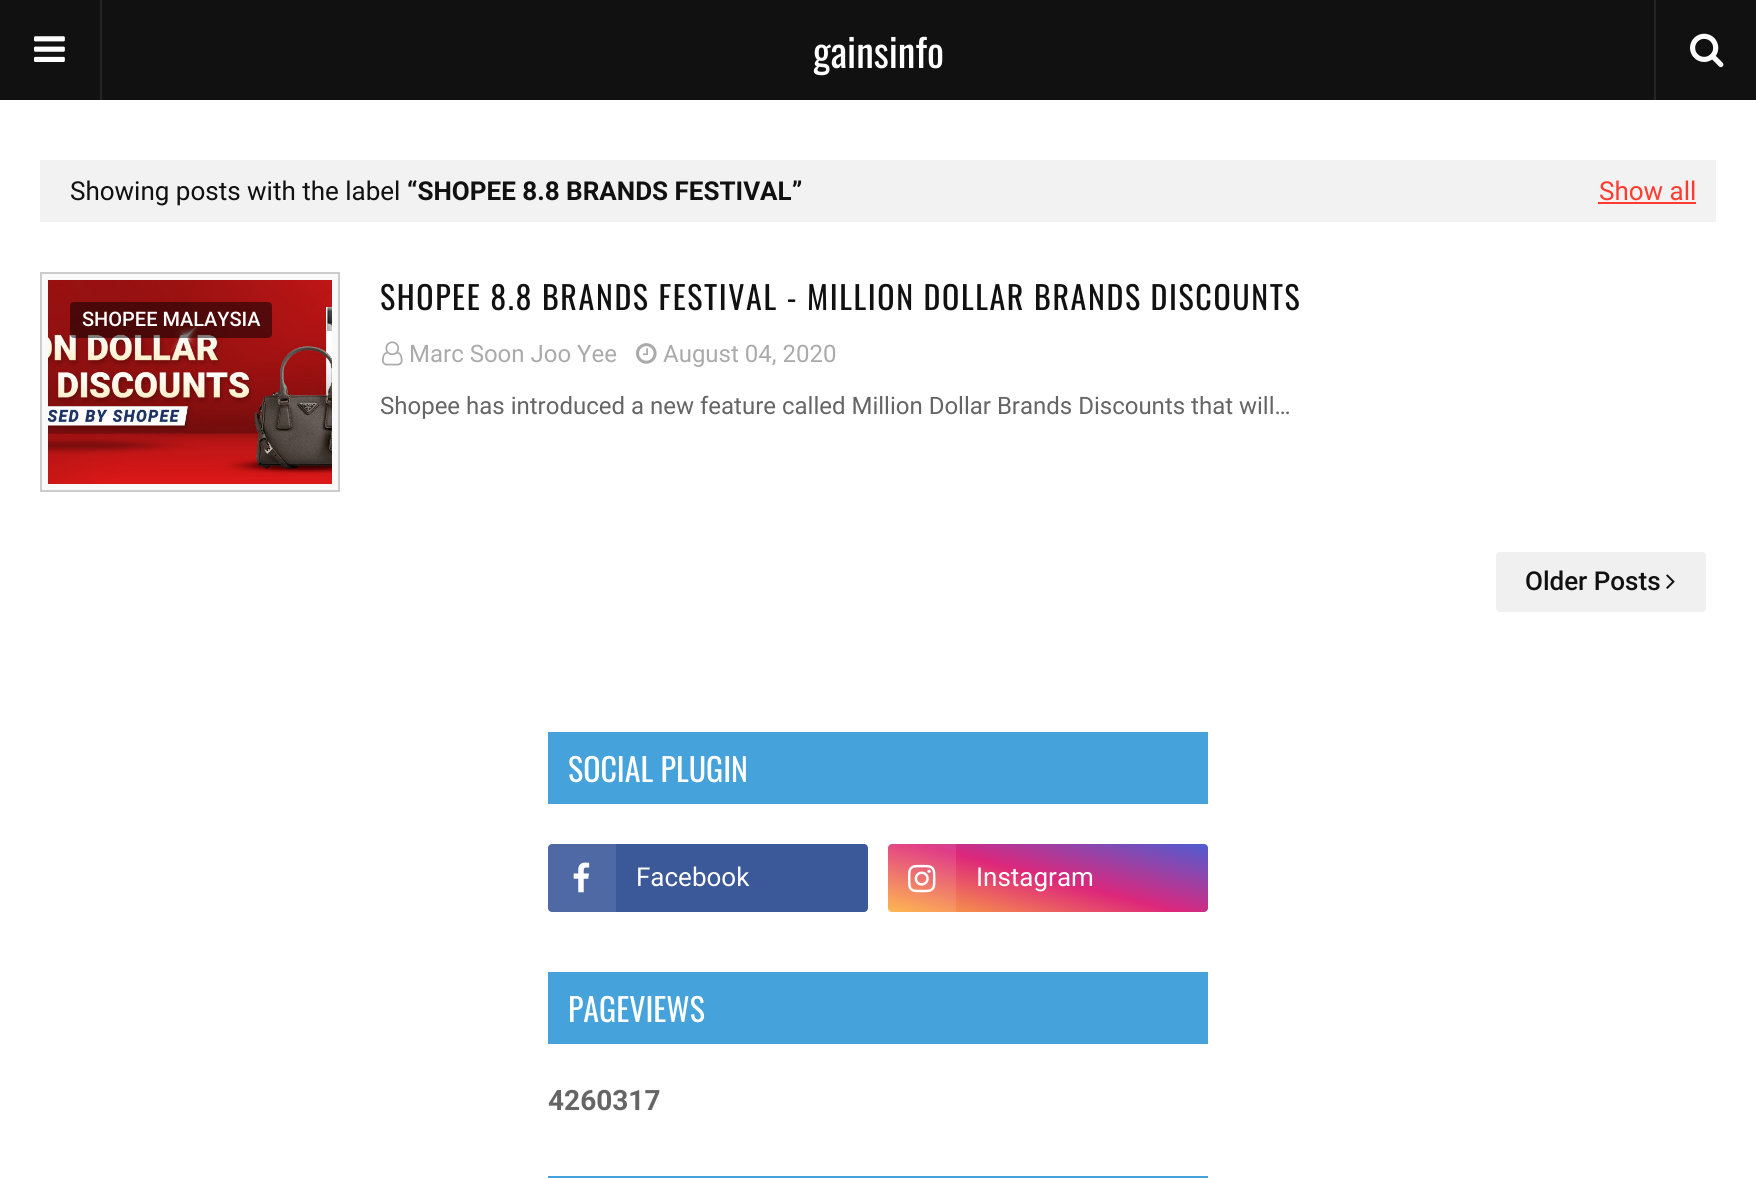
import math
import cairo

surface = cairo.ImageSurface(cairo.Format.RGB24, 1756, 1178)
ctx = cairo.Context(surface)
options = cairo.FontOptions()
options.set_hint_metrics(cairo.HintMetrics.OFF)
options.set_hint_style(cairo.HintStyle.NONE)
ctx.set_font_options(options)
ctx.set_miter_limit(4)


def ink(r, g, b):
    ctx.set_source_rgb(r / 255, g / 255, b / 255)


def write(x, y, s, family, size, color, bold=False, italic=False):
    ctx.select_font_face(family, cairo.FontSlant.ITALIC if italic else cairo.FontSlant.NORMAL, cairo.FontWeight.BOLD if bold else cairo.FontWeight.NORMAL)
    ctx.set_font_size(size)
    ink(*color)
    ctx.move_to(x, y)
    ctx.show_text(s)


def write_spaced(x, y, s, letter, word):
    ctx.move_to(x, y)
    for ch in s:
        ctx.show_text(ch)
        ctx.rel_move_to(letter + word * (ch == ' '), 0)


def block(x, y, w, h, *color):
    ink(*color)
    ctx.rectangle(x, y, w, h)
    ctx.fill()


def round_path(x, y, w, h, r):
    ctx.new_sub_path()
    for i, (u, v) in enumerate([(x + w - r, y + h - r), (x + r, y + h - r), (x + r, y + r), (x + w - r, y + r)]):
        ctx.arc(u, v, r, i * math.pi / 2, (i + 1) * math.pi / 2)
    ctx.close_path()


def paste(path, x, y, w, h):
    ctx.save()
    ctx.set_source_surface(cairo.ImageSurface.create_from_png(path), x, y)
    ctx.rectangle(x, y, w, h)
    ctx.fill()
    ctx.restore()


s1 = dict(family="Oswald", size=40, color=(255, 255, 255))
s2 = dict(family="Roboto", size=26, color=(17, 17, 17))
s3 = dict(family="Roboto", size=26, color=(17, 17, 17), bold=True)
s4 = dict(family="Roboto", size=26, color=(255, 59, 48))
s5 = dict(family="Roboto Medium", size=20, color=(255, 255, 255))
s6 = dict(family="Roboto", size=24, color=(170, 170, 170))
s7 = dict(family="Roboto", size=24, color=(101, 101, 101))
s8 = dict(family="Roboto Medium", size=26, color=(17, 17, 17))
s9 = dict(family="Oswald", size=32, color=(255, 255, 255))
s10 = dict(family="Roboto", size=26, color=(255, 255, 255))
s11 = dict(family="Roboto", size=28, color=(101, 101, 101), bold=True)

ink(255, 255, 255)
ctx.paint()
block(0, 0, 1756, 100, 17, 17, 17)
block(100, 0, 2, 100, 36, 36, 36)
paste("pic1.png", 34, 36, 31, 26)
write(813, 68, "gainsinfo", **s1)
block(1654, 0, 2, 100, 36, 36, 36)
paste("pic2.png", 1690, 33, 34, 35)
block(40, 160, 1676, 62, 242, 242, 242)
write(70, 200, "Showing posts with the label", **s2)
write(407, 200, "“SHOPEE 8.8 BRANDS FESTIVAL”", **s3)
write(1599, 200, "Show all", **s4)
block(1598, 202, 98, 2, 255, 59, 48)
ink(249, 249, 249)
ctx.rectangle(41, 273, 298, 218)
ctx.fill_preserve()
ink(204, 204, 204)
ctx.stroke()
paste("pic3.png", 48, 280, 284, 204)
ctx.set_source_rgba(0, 0, 0, 0.5)
round_path(70, 302, 202, 36, 4)
ctx.fill()
write(82, 326, "SHOPEE MALAYSIA", **s5)
ctx.select_font_face("Oswald")
ctx.set_font_size(32)
ink(17, 17, 17)
write_spaced(380, 310, "SHOPEE 8.8 BRANDS FESTIVAL - MILLION DOLLAR BRANDS DISCOUNTS", 1.6, 0)
paste("pic4.png", 382, 341, 21, 25)
write(409, 362, "Marc Soon Joo Yee", **s6)
paste("pic5.png", 636, 343, 21, 21)
write(663, 362, "August 04, 2020", **s6)
write(380, 414, "Shopee has introduced a new feature called Million Dollar Brands Discounts that will…", **s7)
ink(240, 240, 240)
round_path(1496, 552, 210, 60, 4)
ctx.fill()
write(1525, 590, "Older Posts", **s8)
paste("pic6.png", 1666, 574, 9, 15)
block(548, 732, 660, 72, 69, 162, 219)
write(568, 782, "SOCIAL PLUGIN", **s9)
ink(59, 89, 153)
round_path(548, 844, 320, 68, 4)
ctx.fill()
ctx.set_source_rgba(1, 1, 1, 0.1)
ctx.rectangle(548, 844, 68, 68)
ctx.fill()
paste("pic7.png", 573, 862, 17, 31)
write(636, 886, "Facebook", **s10)
gradient = cairo.LinearGradient(1029, 950, 1067, 806)
gradient.add_color_stop_rgba(0, 1, 0.694, 0.239, 1)
gradient.add_color_stop_rgba(0.5, 0.867, 0.153, 0.482, 1)
gradient.add_color_stop_rgba(1, 0.302, 0.369, 0.831, 1)
ctx.set_source(gradient)
round_path(888, 844, 320, 68, 4)
ctx.fill()
ctx.set_source_rgba(1, 1, 1, 0.1)
ctx.rectangle(888, 844, 68, 68)
ctx.fill()
paste("pic8.png", 908, 864, 28, 29)
write(976, 886, "Instagram", **s10)
block(548, 972, 660, 72, 69, 162, 219)
write(568, 1022, "PAGEVIEWS", **s9)
write(548, 1110, "4260317", **s11)
block(548, 1176, 660, 2, 69, 162, 219)
surface.write_to_png("screenshot.png")
